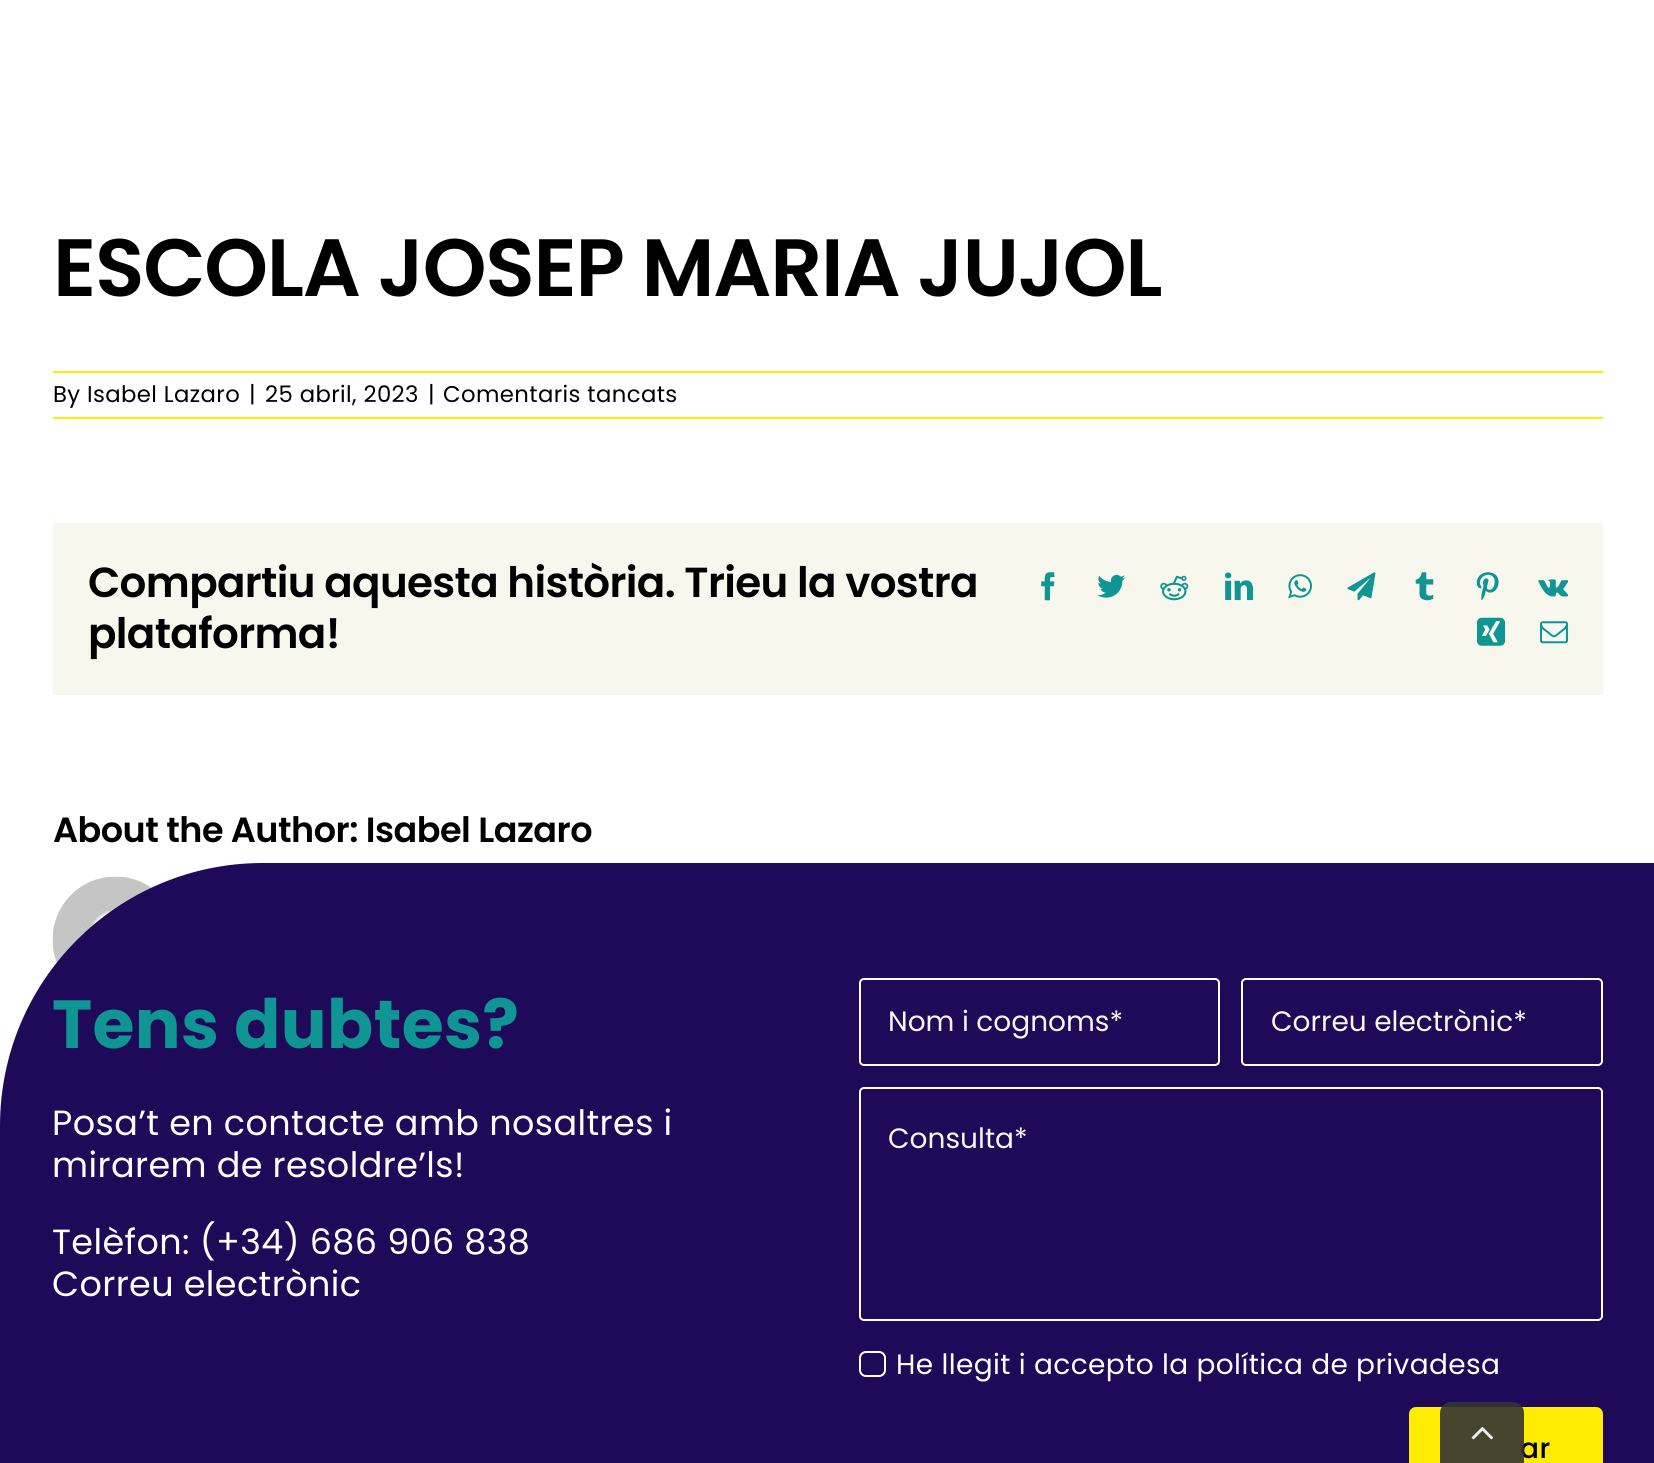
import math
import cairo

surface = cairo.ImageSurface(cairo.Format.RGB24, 1654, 1463)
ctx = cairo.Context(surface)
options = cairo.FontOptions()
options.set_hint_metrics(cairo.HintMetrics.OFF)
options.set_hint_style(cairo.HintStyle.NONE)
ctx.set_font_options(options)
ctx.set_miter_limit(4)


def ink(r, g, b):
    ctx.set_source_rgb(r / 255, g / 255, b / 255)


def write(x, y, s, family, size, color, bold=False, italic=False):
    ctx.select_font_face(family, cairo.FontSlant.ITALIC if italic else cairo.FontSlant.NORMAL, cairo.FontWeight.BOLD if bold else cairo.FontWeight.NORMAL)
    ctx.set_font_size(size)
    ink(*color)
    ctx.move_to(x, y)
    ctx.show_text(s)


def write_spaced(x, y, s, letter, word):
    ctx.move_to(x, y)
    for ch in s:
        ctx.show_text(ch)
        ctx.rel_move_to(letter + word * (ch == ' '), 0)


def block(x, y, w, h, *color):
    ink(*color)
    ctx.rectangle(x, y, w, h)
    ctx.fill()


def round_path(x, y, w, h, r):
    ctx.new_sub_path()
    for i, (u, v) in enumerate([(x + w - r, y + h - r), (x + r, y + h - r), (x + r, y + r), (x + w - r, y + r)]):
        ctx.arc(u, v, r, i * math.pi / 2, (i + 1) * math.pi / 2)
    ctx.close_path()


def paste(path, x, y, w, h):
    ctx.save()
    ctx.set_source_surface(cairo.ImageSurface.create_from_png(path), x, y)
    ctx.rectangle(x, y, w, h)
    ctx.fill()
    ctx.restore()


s1 = dict(family="Poppins", size=28, color=(247, 247, 238))

ink(255, 255, 255)
ctx.paint()
ctx.select_font_face("Poppins SemiBold")
ctx.set_font_size(81.2)
ink(0, 0, 0)
write_spaced(53, 296, "ESCOLA JOSEP MARIA JUJOL", -1.25, 0)
block(53, 371, 1550, 2, 255, 236, 0)
block(53, 417, 1550, 2, 255, 236, 0)
ctx.select_font_face("Poppins")
ctx.set_font_size(22.75)
ink(0, 0, 0)
write_spaced(53, 402, "By Isabel Lazaro", 0.4, 0)
write_spaced(249, 402, "|", 0.4, 0)
write_spaced(265, 402, "25 abril, 2023", 0.4, 0)
write_spaced(428, 402, "|", 0.4, 0)
write_spaced(443, 402, "Comentaris tancats", 0.4, 0)
block(53, 523, 1550, 172, 247, 247, 238)
ctx.select_font_face("Poppins SemiBold")
ctx.set_font_size(42)
ink(0, 0, 0)
write_spaced(88, 597, "Compartiu aquesta història. Trieu la vostra", -0.65, 0)
write_spaced(88, 648, "plataforma!", -0.65, 0)
paste("pic1.png", 1041, 572, 14, 29)
paste("pic2.png", 1097, 574, 29, 24)
paste("pic3.png", 1160, 575, 29, 26)
paste("pic4.png", 1225, 572, 28, 29)
paste("pic5.png", 1288, 574, 24, 25)
paste("pic6.png", 1347, 572, 29, 29)
paste("pic7.png", 1415, 572, 19, 29)
paste("pic8.png", 1476, 572, 23, 29)
paste("pic9.png", 1538, 579, 30, 18)
paste("pic10.png", 1477, 617, 28, 29)
paste("pic11.png", 1540, 621, 28, 23)
ctx.set_font_size(35)
write_spaced(53, 842, "About the Author: Isabel Lazaro", -0.5, 0)
paste("pic12.png", 52, 876, 100, 87)
ink(31, 10, 89)
ctx.new_path()
ctx.move_to(263, 863)
ctx.line_to(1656, 863)
ctx.line_to(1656, 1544)
ctx.line_to(0, 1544)
ctx.line_to(0, 1126)
ctx.curve_to(0, 980.5, 117.5, 863, 263, 863)
ctx.close_path()
ctx.fill()
ctx.select_font_face("Poppins", cairo.FontSlant.NORMAL, cairo.FontWeight.BOLD)
ctx.set_font_size(68)
ink(14, 149, 148)
write_spaced(52, 1048, "Tens dubtes?", 0.4, 0)
ctx.select_font_face("Poppins")
ctx.set_font_size(35)
ink(255, 255, 255)
write_spaced(52, 1135, "Posa’t en contacte amb nosaltres i", 0.4, 0)
write_spaced(52, 1177, "mirarem de resoldre’ls!", 0.4, 0)
write_spaced(52, 1254, "Telèfon: (+34) 686 906 838", 0.4, 0)
write_spaced(52, 1296, "Correu electrònic", 0.4, 0)
round_path(860, 979, 359, 86, 4)
ctx.stroke()
write(888, 1031, "Nom i cognoms*", **s1)
round_path(1242, 979, 360, 86, 4)
ink(255, 255, 255)
ctx.stroke()
write(1271, 1031, "Correu electrònic*", **s1)
round_path(860, 1088, 742, 232, 4)
ink(255, 255, 255)
ctx.stroke()
write(888, 1148, "Consulta*", **s1)
round_path(860, 1352, 25, 24, 6)
ink(255, 255, 255)
ctx.stroke()
write_spaced(896, 1374, "He llegit i accepto la política de privadesa", 0.4, 0)
ink(255, 236, 0)
round_path(1410, 1408, 192, 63, 6)
ctx.fill_preserve()
ctx.stroke()
ctx.select_font_face("Poppins Medium")
ink(0, 0, 0)
write_spaced(1520, 1458, "ar", 0.4, 0)
ctx.set_source_rgba(0.2, 0.2, 0.2, 0.9)
ctx.new_path()
ctx.move_to(1451, 1402)
ctx.line_to(1513, 1402)
ctx.curve_to(1519, 1402, 1524, 1407, 1524, 1413)
ctx.line_to(1524, 1463)
ctx.line_to(1440, 1463)
ctx.line_to(1440, 1413)
ctx.curve_to(1440, 1407, 1445, 1402, 1451, 1402)
ctx.close_path()
ctx.fill()
paste("pic13.png", 1471, 1426, 22, 14)
surface.write_to_png("screenshot.png")
